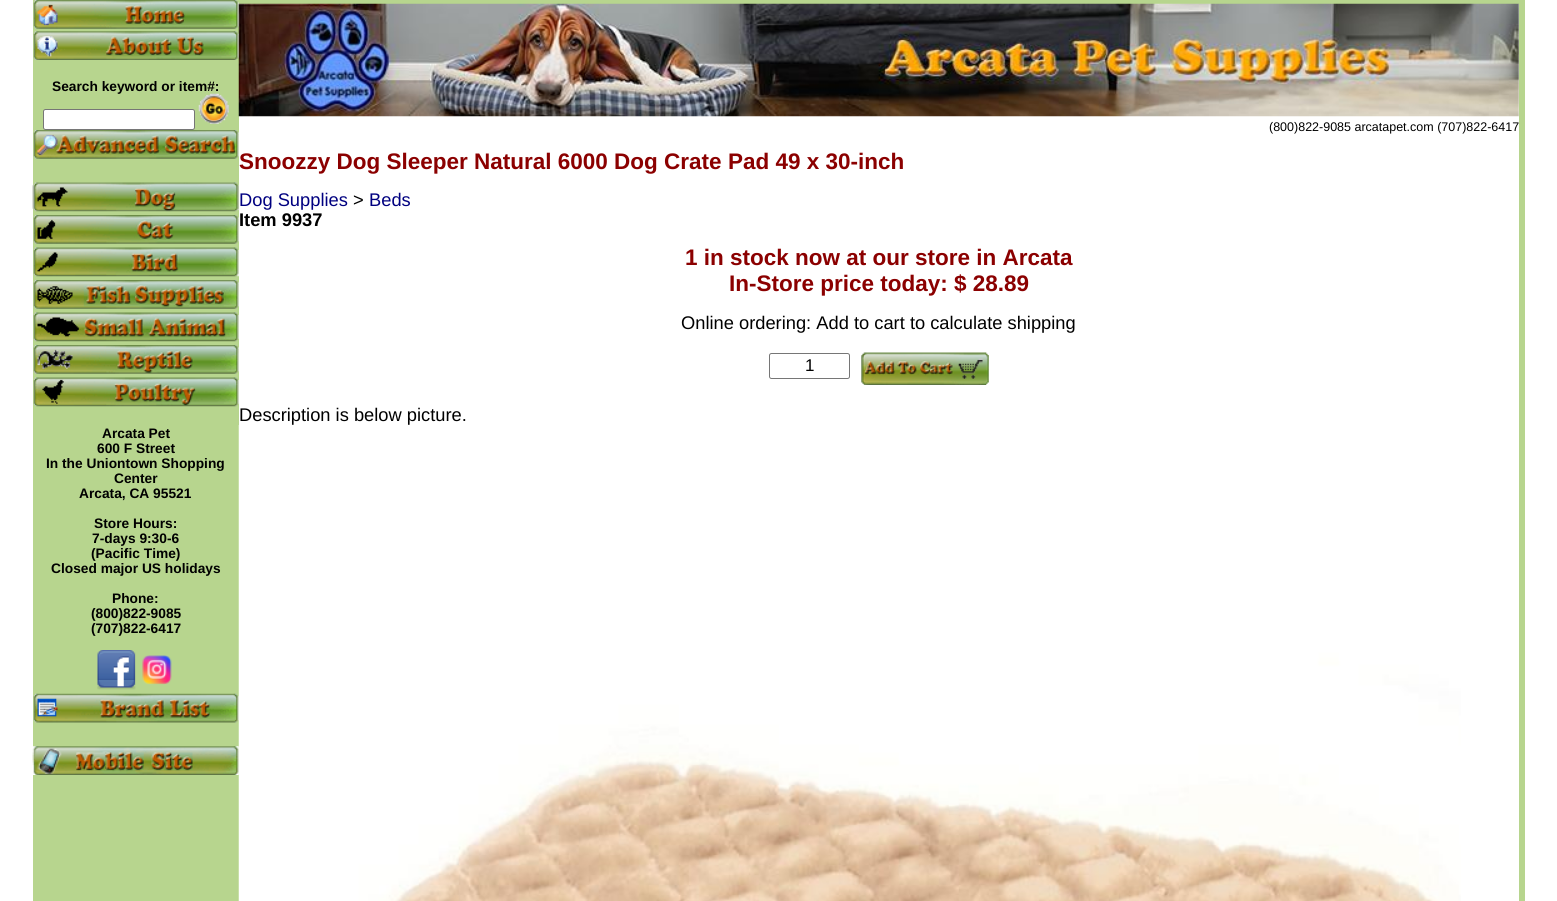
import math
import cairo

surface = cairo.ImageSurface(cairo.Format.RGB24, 1557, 901)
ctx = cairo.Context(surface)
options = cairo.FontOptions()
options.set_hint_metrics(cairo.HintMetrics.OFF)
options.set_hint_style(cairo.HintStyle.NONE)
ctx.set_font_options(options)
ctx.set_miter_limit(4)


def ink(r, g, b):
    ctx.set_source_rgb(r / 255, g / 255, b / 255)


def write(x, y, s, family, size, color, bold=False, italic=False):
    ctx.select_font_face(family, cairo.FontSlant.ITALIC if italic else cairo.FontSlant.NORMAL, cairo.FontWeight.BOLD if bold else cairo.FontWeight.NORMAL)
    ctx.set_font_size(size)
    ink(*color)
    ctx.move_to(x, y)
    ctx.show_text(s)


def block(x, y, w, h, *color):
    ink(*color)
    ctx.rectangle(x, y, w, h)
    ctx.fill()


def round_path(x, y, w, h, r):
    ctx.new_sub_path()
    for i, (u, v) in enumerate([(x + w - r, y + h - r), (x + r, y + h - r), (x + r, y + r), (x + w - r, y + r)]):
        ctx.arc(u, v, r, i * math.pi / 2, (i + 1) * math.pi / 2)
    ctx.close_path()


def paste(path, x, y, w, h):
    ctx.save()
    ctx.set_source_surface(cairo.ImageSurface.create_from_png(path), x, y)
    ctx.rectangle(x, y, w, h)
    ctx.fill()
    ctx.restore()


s1 = dict(family="Liberation Sans", size=13.75, color=(0, 0, 0), bold=True)
s2 = dict(family="Liberation Sans", size=12.5, color=(0, 0, 0))
s3 = dict(family="Liberation Sans", size=22.5, color=(139, 0, 0), bold=True)
s4 = dict(family="Liberation Sans", size=18.3, color=(0, 0, 128))
s5 = dict(family="Liberation Sans", size=18.3, color=(0, 0, 0))
s6 = dict(family="Liberation Sans", size=18.3, color=(0, 0, 0), bold=True)
s7 = dict(family="Liberation Sans", size=17, color=(0, 0, 0))

ink(255, 255, 255)
ctx.paint()
block(33, 0, 206, 901, 183, 213, 142)
block(238, 0, 1283, 4, 183, 213, 142)
paste("pic1.png", 33, 0, 206, 29)
paste("pic2.png", 33, 31, 206, 29)
write(52, 91, "Search keyword or item#:", **s1)
ink(255, 255, 255)
round_path(43.5, 109.5, 151, 20, 2)
ctx.fill_preserve()
ink(118, 118, 118)
ctx.set_line_width(1)
ctx.stroke()
paste("pic3.png", 198, 93, 31, 31)
paste("pic4.png", 33, 130, 206, 29)
paste("pic5.png", 32, 182, 207, 30)
paste("pic6.png", 33, 215, 206, 29)
paste("pic7.png", 33, 247, 206, 30)
paste("pic8.png", 33, 280, 206, 29)
paste("pic9.png", 33, 312, 206, 30)
paste("pic10.png", 33, 345, 206, 29)
paste("pic11.png", 33, 377, 206, 30)
write(102, 438, "Arcata Pet", **s1)
write(97, 453, "600 F Street", **s1)
write(46, 468, "In the Uniontown Shopping", **s1)
write(114, 483, "Center", **s1)
write(79, 498, "Arcata, CA 95521", **s1)
write(94, 528, "Store Hours:", **s1)
write(92, 543, "7-days 9:30-6", **s1)
write(91, 558, "(Pacific Time)", **s1)
write(51, 573, "Closed major US holidays", **s1)
write(112, 603, "Phone:", **s1)
write(91, 618, "(800)822-9085", **s1)
write(91, 633, "(707)822-6417", **s1)
paste("pic12.png", 97, 650, 39, 40)
paste("pic13.png", 142, 655, 30, 30)
paste("pic14.png", 33, 693, 206, 30)
paste("pic15.png", 32, 746, 207, 29)
paste("pic16.png", 238, 3, 1281, 114)
write(1269, 131, "(800)822-9085 arcatapet.com (707)822-6417", **s2)
write(239, 169, "Snoozzy Dog Sleeper Natural 6000 Dog Crate Pad 49 x 30-inch", **s3)
write(239, 206, "Dog Supplies", **s4)
write(353, 206, ">", **s5)
write(369, 206, "Beds", **s4)
write(239, 226, "Item 9937", **s6)
write(685, 265, "1 in stock now at our store in Arcata", **s3)
write(729, 291, "In-Store price today: $ 28.89", **s3)
write(681, 329, "Online ordering: Add to cart to calculate shipping", **s5)
round_path(769.5, 353.5, 80, 25, 2)
ink(118, 118, 118)
ctx.stroke()
write(805, 371, "1", **s7)
paste("pic17.png", 861, 352, 128, 33)
write(239, 421, "Description is below picture.", **s5)
paste("pic18.png", 238, 425, 1223, 476)
block(1519, 0, 6, 901, 183, 213, 142)
surface.write_to_png("screenshot.png")
